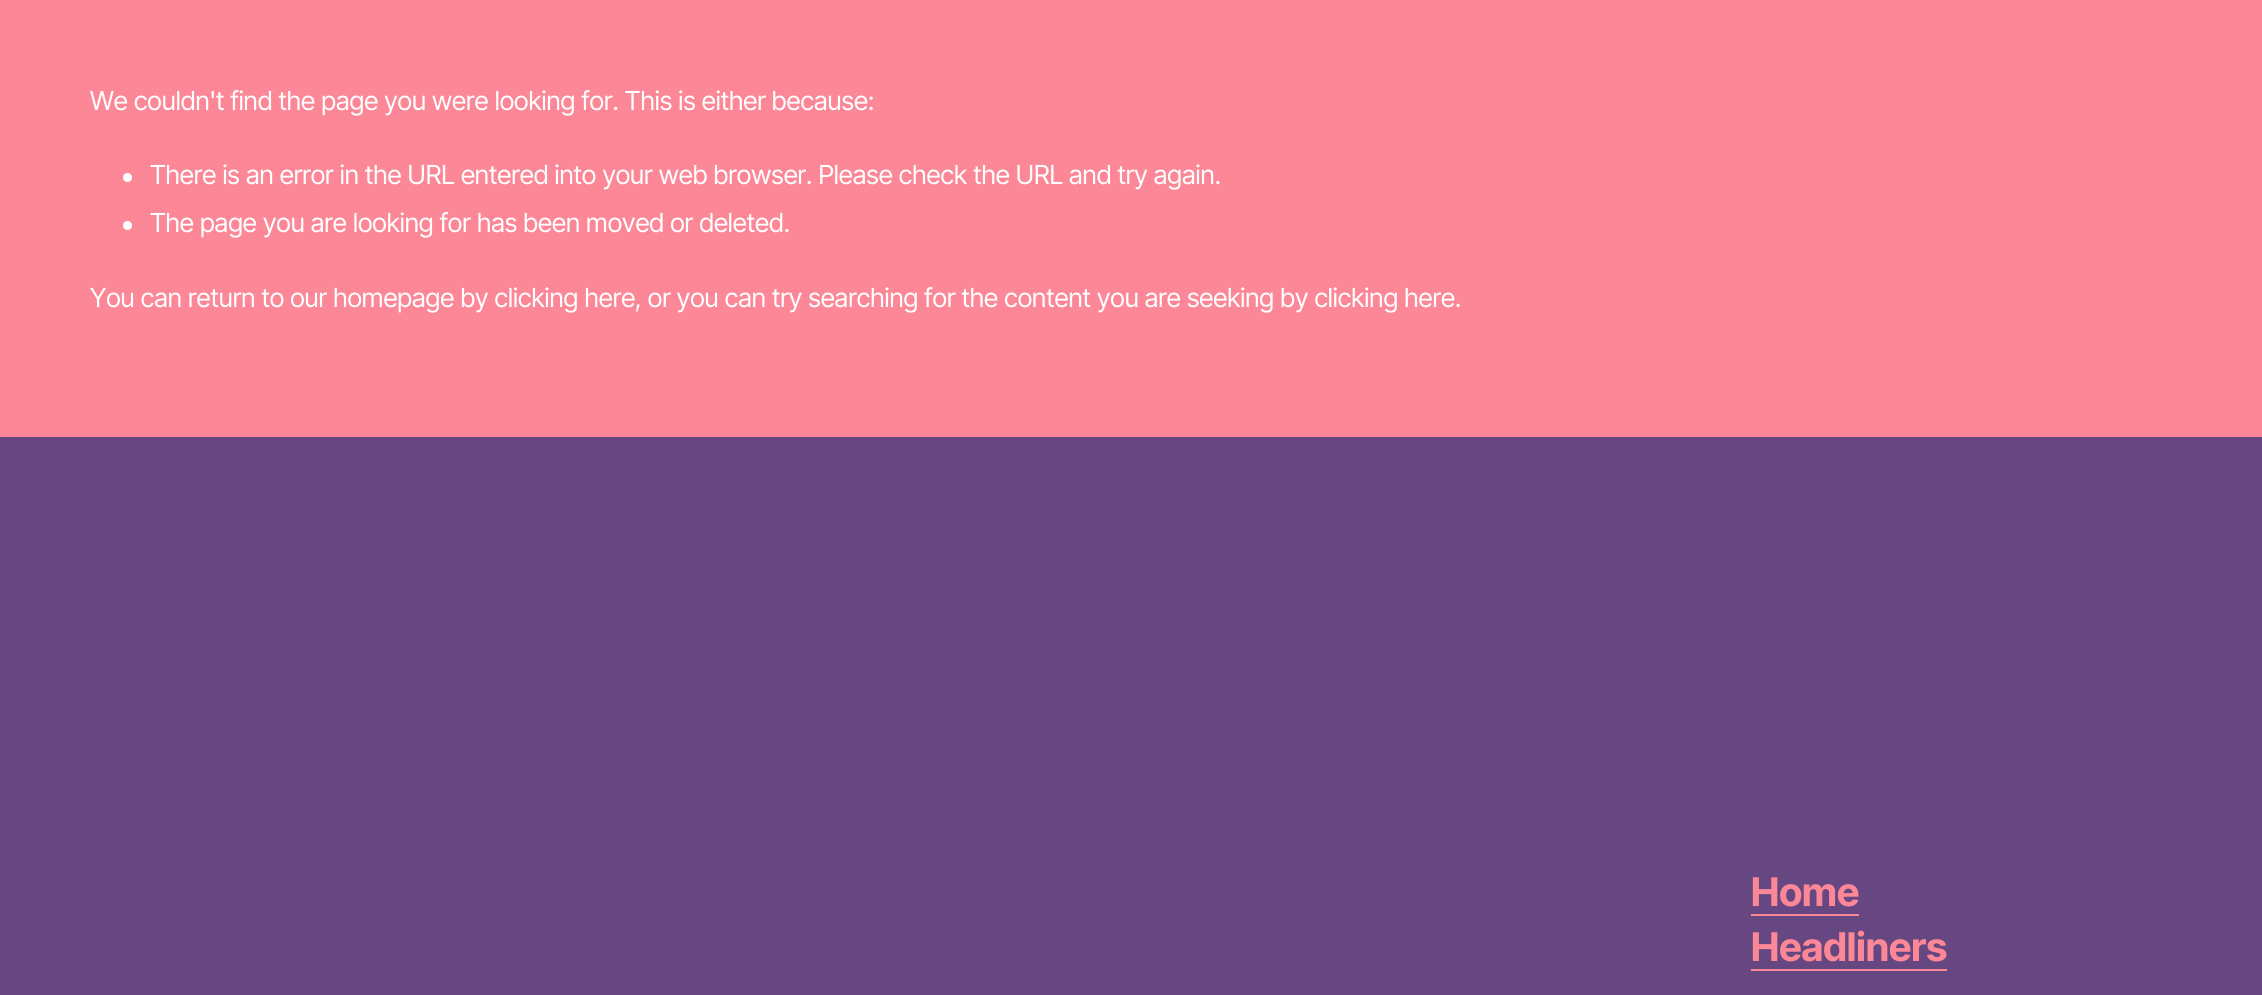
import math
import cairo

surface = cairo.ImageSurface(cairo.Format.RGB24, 2262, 995)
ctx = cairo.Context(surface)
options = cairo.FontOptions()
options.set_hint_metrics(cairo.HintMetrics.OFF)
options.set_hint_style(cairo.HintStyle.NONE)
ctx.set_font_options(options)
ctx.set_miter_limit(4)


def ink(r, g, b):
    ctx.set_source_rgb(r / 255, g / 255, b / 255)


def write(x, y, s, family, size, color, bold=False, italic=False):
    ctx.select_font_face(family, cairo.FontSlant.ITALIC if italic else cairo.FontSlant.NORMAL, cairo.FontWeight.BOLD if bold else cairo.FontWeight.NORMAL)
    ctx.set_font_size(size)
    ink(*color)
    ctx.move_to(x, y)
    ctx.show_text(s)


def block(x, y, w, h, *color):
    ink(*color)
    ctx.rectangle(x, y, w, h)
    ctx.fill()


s1 = dict(family="Inter Tight", size=26.17, color=(255, 255, 255))
s2 = dict(family="Inter Tight", size=39.5, color=(251, 135, 151), bold=True)

ink(251, 135, 151)
ctx.paint()
write(90, 110, "We couldn't find the page you were looking for. This is either because:", **s1)
ctx.new_path()
ctx.arc(127.5, 177.5, 4.5, 0, 2 * math.pi)
ctx.fill()
write(150, 184, "There is an error in the URL entered into your web browser. Please check the URL and try again.", **s1)
ctx.new_path()
ctx.arc(127.5, 225.5, 4.5, 0, 2 * math.pi)
ctx.fill()
write(150, 232, "The page you are looking for has been moved or deleted.", **s1)
write(90, 307, "You can return to our homepage by clicking here, or you can try searching for the content you are seeking by clicking here.", **s1)
block(0, 437, 2262, 558, 103, 71, 129)
write(1751, 906, "Home", **s2)
block(1751, 914, 108, 2, 251, 135, 151)
write(1751, 961, "Headliners", **s2)
block(1751, 969, 196, 2, 251, 135, 151)
surface.write_to_png("screenshot.png")
